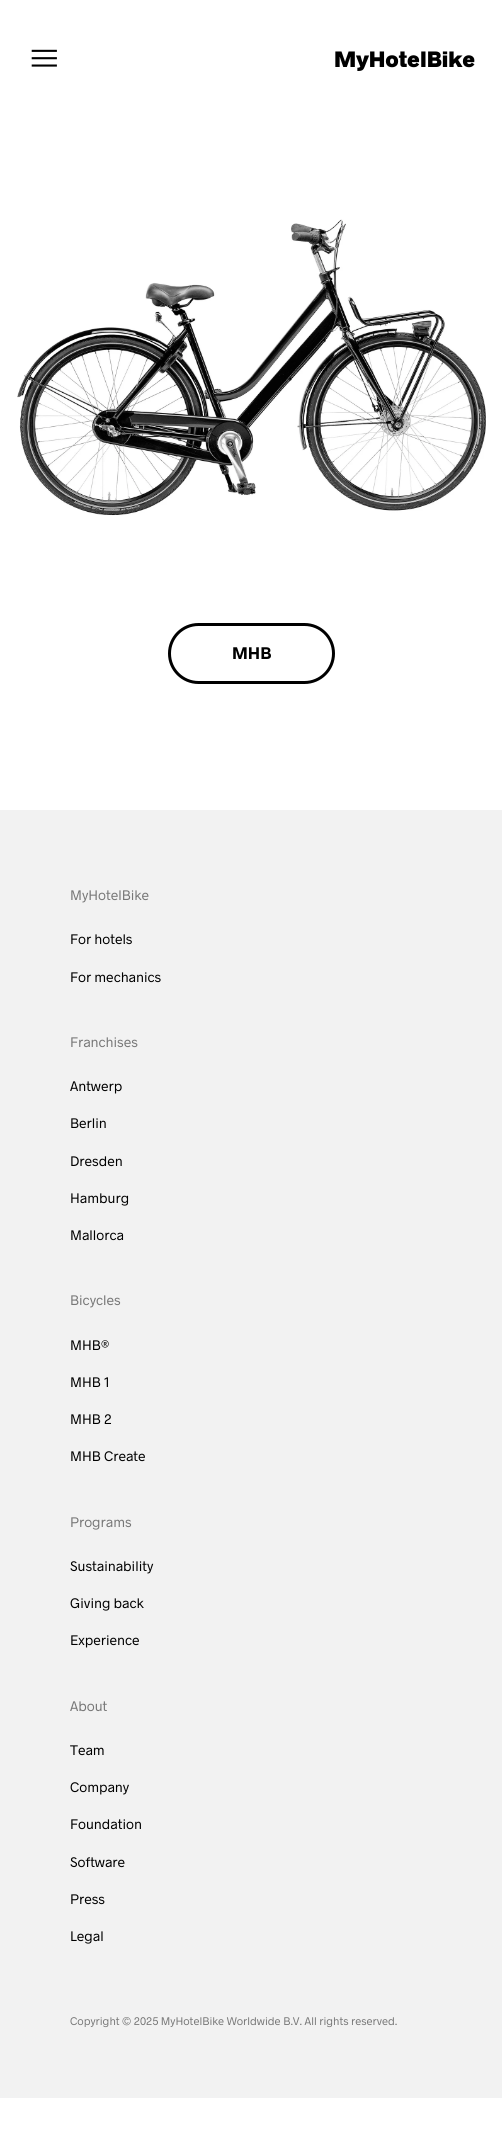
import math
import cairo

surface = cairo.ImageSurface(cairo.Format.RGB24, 502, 2148)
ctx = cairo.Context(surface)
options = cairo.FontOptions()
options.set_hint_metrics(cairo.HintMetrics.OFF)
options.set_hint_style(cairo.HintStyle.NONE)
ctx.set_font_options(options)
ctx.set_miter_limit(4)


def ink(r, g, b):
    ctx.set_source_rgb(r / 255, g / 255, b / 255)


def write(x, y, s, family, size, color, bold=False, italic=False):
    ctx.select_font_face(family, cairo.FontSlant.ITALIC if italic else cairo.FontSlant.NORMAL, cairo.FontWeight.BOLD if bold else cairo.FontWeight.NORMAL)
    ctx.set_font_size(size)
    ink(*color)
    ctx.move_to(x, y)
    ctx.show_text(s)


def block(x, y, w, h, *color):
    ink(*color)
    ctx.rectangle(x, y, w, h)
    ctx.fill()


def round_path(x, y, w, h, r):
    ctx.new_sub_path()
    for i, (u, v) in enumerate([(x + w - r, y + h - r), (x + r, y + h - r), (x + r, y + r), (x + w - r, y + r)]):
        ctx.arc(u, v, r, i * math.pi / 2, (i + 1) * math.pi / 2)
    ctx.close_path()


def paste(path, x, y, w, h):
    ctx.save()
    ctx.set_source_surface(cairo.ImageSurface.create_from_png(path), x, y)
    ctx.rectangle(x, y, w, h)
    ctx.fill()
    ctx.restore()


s1 = dict(family="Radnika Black", size=22.5, color=(0, 0, 0))
s2 = dict(family="Radnika", size=17, color=(0, 0, 0), bold=True)
s3 = dict(family="Radnika", size=14, color=(119, 119, 119))
s4 = dict(family="Radnika", size=14, color=(0, 0, 0))
s5 = dict(family="Radnika", size=11.2, color=(119, 119, 119))

ink(255, 255, 255)
ctx.paint()
paste("pic1.png", 31, 49, 26, 18)
write(334, 67, "MyHotelBike", **s1)
paste("pic2.png", 17, 219, 469, 297)
round_path(169.5, 624.5, 164, 58, 29)
ctx.set_line_width(3)
ctx.stroke()
write(232, 659, "MHB", **s2)
block(0, 810, 502, 1288, 242, 242, 242)
write(70, 900, "MyHotelBike", **s3)
write(70, 944, "For hotels", **s4)
write(70, 982, "For mechanics", **s4)
write(70, 1047, "Franchises", **s3)
write(70, 1091, "Antwerp", **s4)
write(70, 1128, "Berlin", **s4)
write(70, 1166, "Dresden", **s4)
write(70, 1203, "Hamburg", **s4)
write(70, 1240, "Mallorca", **s4)
write(70, 1305, "Bicycles", **s3)
write(70, 1350, "MHB®", **s4)
write(70, 1387, "MHB 1", **s4)
write(70, 1424, "MHB 2", **s4)
write(70, 1461, "MHB Create", **s4)
write(70, 1527, "Programs", **s3)
write(70, 1571, "Sustainability", **s4)
write(70, 1608, "Giving back", **s4)
write(70, 1645, "Experience", **s4)
write(70, 1711, "About", **s3)
write(70, 1755, "Team", **s4)
write(70, 1792, "Company", **s4)
write(70, 1829, "Foundation", **s4)
write(70, 1867, "Software", **s4)
write(70, 1904, "Press", **s4)
write(70, 1941, "Legal", **s4)
write(70, 2025, "Copyright © 2025 MyHotelBike Worldwide B.V. All rights reserved.", **s5)
surface.write_to_png("screenshot.png")
